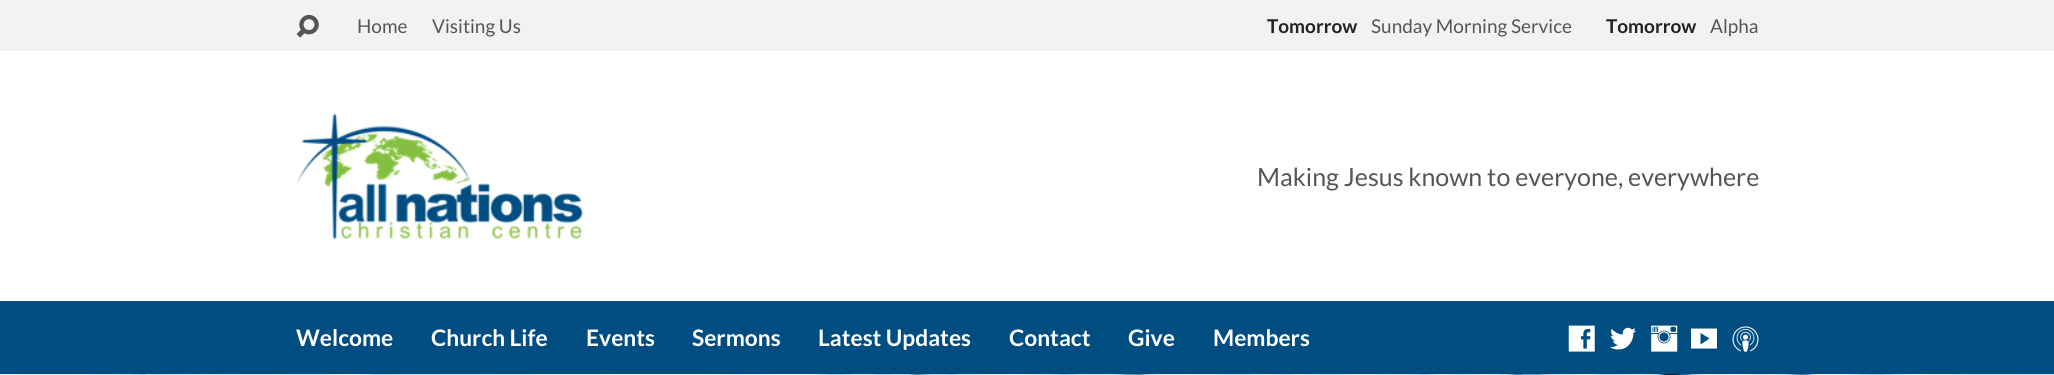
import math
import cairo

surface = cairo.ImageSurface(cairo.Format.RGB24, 2054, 375)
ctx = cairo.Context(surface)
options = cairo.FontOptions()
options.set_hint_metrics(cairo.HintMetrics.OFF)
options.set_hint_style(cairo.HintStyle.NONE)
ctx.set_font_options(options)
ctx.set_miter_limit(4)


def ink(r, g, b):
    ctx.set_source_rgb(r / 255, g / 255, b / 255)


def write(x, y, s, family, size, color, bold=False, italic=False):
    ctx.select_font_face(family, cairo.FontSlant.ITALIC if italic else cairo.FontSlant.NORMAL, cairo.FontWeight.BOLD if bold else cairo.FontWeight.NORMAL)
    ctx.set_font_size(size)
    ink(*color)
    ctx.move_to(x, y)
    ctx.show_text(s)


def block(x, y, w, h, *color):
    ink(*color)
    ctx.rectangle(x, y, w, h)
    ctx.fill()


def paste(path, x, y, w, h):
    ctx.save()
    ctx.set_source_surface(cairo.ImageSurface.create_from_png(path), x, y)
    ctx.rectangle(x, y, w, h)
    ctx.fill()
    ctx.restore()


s1 = dict(family="Lato", size=19, color=(85, 85, 85))
s2 = dict(family="Lato", size=19, color=(34, 34, 34), bold=True)
s3 = dict(family="Lato", size=25, color=(85, 85, 85))
s4 = dict(family="Lato", size=22.75, color=(255, 255, 255), bold=True)

ink(255, 255, 255)
ctx.paint()
block(0, 0, 2054, 51, 242, 242, 242)
paste("pic1.png", 296, 14, 23, 24)
write(357, 33, "Home", **s1)
write(432, 33, "Visiting Us", **s1)
write(1267, 33, "Tomorrow", **s2)
write(1371, 33, "Sunday Morning Service", **s1)
write(1606, 33, "Tomorrow", **s2)
write(1710, 33, "Alpha", **s1)
paste("pic2.png", 297, 113, 286, 126)
write(1257, 186, "Making Jesus known to everyone, everywhere", **s3)
block(0, 301, 2054, 73, 0, 77, 129)
write(296, 346, "Welcome", **s4)
write(431, 346, "Church Life", **s4)
write(586, 346, "Events", **s4)
write(692, 346, "Sermons", **s4)
write(818, 346, "Latest Updates", **s4)
write(1009, 346, "Contact", **s4)
write(1128, 346, "Give", **s4)
write(1213, 346, "Members", **s4)
paste("pic3.png", 1568, 325, 27, 27)
paste("pic4.png", 1610, 327, 26, 23)
paste("pic5.png", 1651, 325, 27, 27)
ctx.new_path()
ctx.move_to(1717, 348.5)
ctx.line_to(1691, 348.5)
ctx.line_to(1691, 328.5)
ctx.line_to(1717, 328.5)
ctx.close_path()
ctx.move_to(1700.5, 344.5)
ctx.line_to(1709.5, 338.5)
ctx.line_to(1700.5, 333)
ctx.close_path()
ctx.fill()
paste("pic6.png", 1732, 326, 27, 26)
paste("pic7.png", 0, 374, 2054, 1)
surface.write_to_png("screenshot.png")
